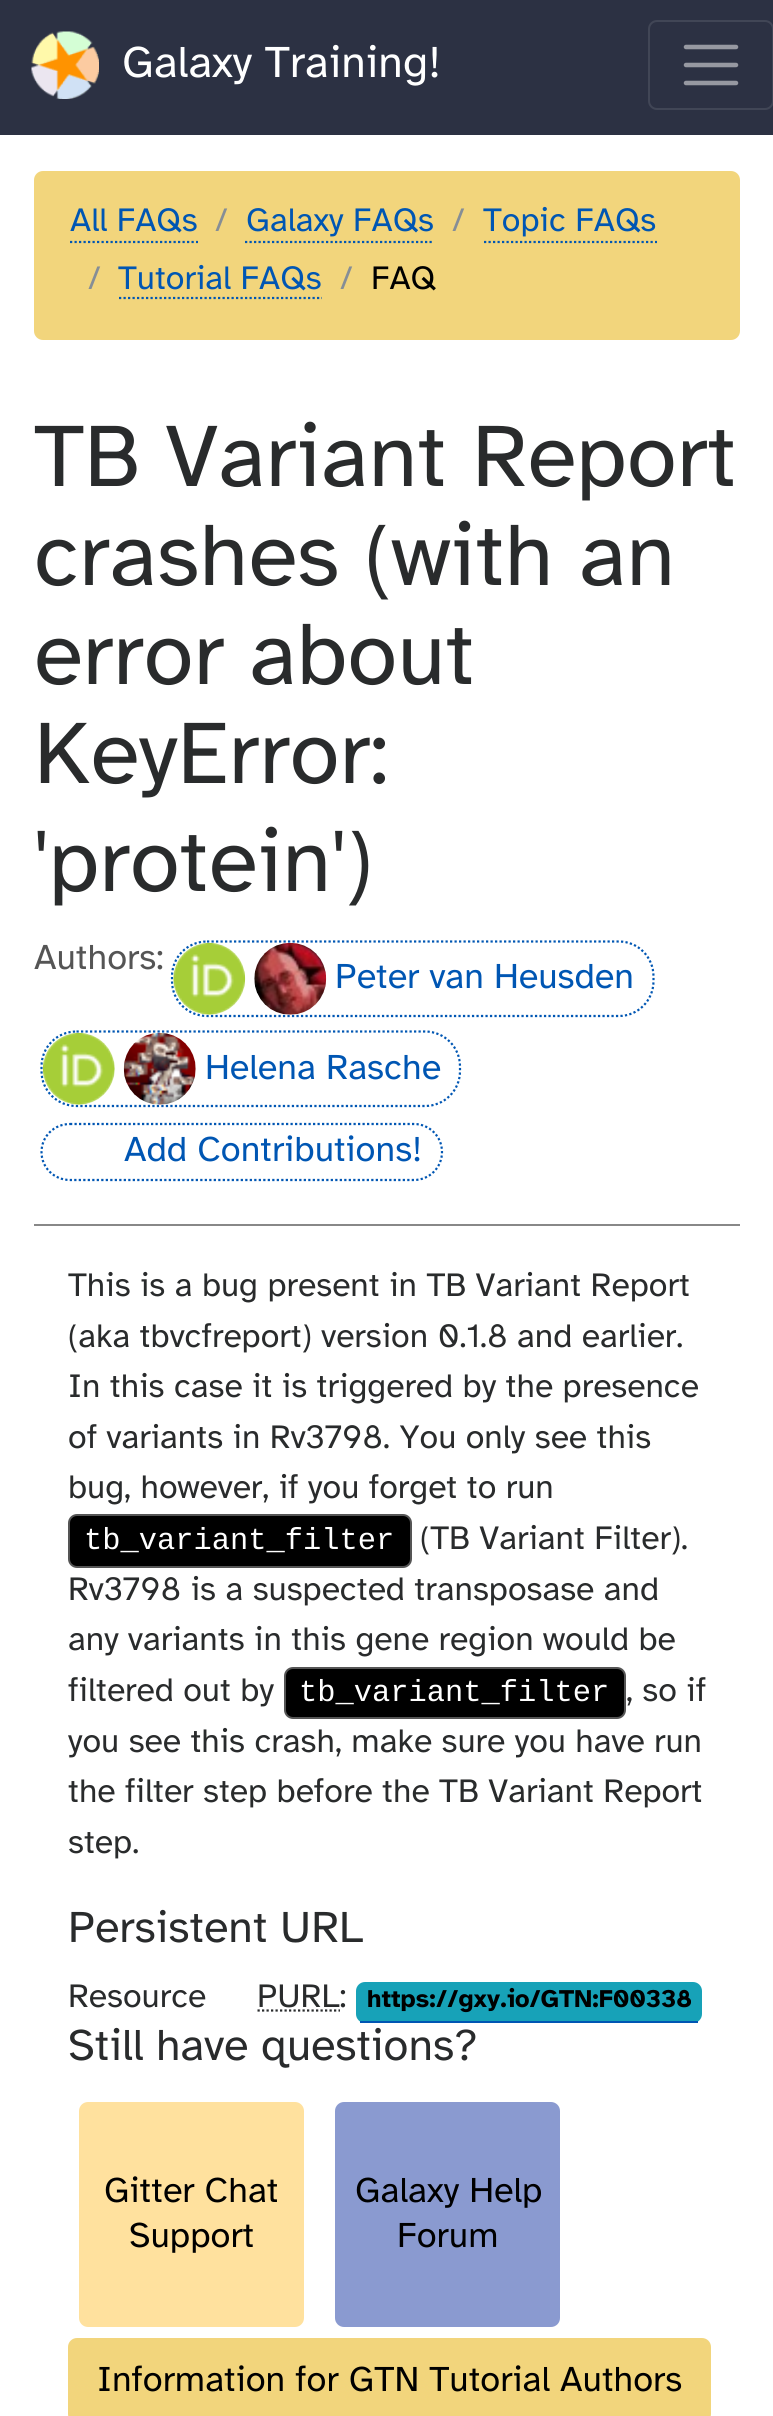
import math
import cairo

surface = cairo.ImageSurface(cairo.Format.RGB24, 773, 2416)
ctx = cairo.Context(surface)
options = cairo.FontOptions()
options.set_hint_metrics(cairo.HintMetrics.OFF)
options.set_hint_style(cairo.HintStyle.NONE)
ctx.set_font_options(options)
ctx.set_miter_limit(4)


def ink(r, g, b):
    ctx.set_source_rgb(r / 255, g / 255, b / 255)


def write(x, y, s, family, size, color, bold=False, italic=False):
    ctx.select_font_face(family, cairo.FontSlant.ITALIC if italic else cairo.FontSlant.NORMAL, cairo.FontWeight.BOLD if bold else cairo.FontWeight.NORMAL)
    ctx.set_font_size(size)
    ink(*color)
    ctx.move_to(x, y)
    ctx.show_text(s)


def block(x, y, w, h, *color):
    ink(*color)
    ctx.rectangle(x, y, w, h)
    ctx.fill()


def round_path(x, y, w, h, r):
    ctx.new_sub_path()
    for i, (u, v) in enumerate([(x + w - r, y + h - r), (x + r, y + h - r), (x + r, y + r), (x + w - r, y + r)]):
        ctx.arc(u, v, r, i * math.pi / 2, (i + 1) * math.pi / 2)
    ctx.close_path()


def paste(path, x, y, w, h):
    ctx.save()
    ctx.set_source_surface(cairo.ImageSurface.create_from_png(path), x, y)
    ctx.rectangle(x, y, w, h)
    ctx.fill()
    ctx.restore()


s1 = dict(family="Atkinson Hyperlegible", size=45, color=(255, 255, 255))
s2 = dict(family="Atkinson Hyperlegible", size=33.75, color=(0, 86, 179))
s3 = dict(family="Atkinson Hyperlegible", size=33.75, color=(134, 142, 150))
s4 = dict(family="Atkinson Hyperlegible", size=33.75, color=(0, 0, 0))
s5 = dict(family="Atkinson Hyperlegible", size=90, color=(41, 43, 44))
s6 = dict(family="Atkinson Hyperlegible", size=36, color=(85, 85, 85))
s7 = dict(family="Atkinson Hyperlegible", size=36, color=(0, 86, 179))
s8 = dict(family="Atkinson Hyperlegible", size=33.75, color=(41, 43, 44))
s9 = dict(family="Liberation Mono", size=30.4, color=(255, 255, 255))
s10 = dict(family="Atkinson Hyperlegible", size=45, color=(41, 43, 44))
s11 = dict(family="Atkinson Hyperlegible", size=25.25, color=(0, 0, 0), bold=True)
s12 = dict(family="Atkinson Hyperlegible", size=36, color=(0, 0, 0))

ink(255, 255, 255)
ctx.paint()
block(0, 0, 773, 135, 44, 49, 67)
paste("pic1.png", 31, 31, 68, 68)
write(122, 77, "Galaxy Training!", **s1)
round_path(649, 21, 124, 88, 8)
ink(65, 70, 86)
ctx.stroke()
ctx.new_path()
ctx.move_to(686, 47)
ctx.line_to(736, 47)
ctx.move_to(686, 65)
ctx.line_to(736, 65)
ctx.move_to(686, 83)
ctx.line_to(736, 83)
ink(150, 152, 161)
ctx.set_line_width(4.5)
ctx.set_line_cap(cairo.LineCap.ROUND)
ctx.stroke()
ink(242, 213, 124)
round_path(34, 171, 706, 169, 9)
ctx.fill()
write(70, 231, "All FAQs", **s2)
ctx.new_path()
ctx.move_to(70, 242)
ctx.line_to(198, 242)
ctx.set_line_width(2.2)
ctx.set_line_cap(cairo.LineCap.BUTT)
ctx.set_dash([2.25, 2.25])
ctx.stroke()
write(215, 231, "/", **s3)
write(246, 231, "Galaxy FAQs", **s2)
ctx.new_path()
ctx.move_to(245, 242)
ctx.line_to(434, 242)
ctx.stroke()
write(452, 231, "/", **s3)
write(483, 231, "Topic FAQs", **s2)
ctx.new_path()
ctx.move_to(484, 242)
ctx.line_to(657, 242)
ctx.stroke()
write(88, 289, "/", **s3)
write(118, 289, "Tutorial FAQs", **s2)
ctx.new_path()
ctx.move_to(119, 298)
ctx.line_to(322, 298)
ctx.stroke()
write(340, 289, "/", **s3)
write(371, 289, "FAQ", **s4)
write(34, 486, "TB Variant Report", **s5)
write(34, 585, "crashes (with an", **s5)
write(34, 684, "error about", **s5)
write(34, 783, "KeyError:", **s5)
write(34, 891, "'protein')", **s5)
write(34, 969, "Authors:", **s6)
ctx.new_path()
ctx.move_to(207, 941.5)
ctx.line_to(619, 941.5)
ctx.curve_to(638, 941.5, 653.5, 957, 653.5, 976.5)
ctx.line_to(653.5, 981)
ctx.curve_to(653.5, 1000.5, 638, 1016, 619, 1016)
ctx.line_to(207, 1016)
ctx.curve_to(187.5, 1016, 172, 1000.5, 172, 981)
ctx.line_to(172, 976.5)
ctx.curve_to(172, 957, 187.5, 941.5, 207, 941.5)
ctx.close_path()
ink(0, 86, 179)
ctx.stroke()
paste("pic2.png", 173, 942, 73, 73)
paste("pic3.png", 254, 942, 73, 73)
write(335, 988, "Peter van Heusden", **s7)
ctx.new_path()
ctx.move_to(76.5, 1031.5)
ctx.line_to(425, 1031.5)
ctx.curve_to(444.5, 1031.5, 460, 1047, 460, 1066.5)
ctx.line_to(460, 1071)
ctx.curve_to(460, 1090.5, 444.5, 1106, 425, 1106)
ctx.line_to(76.5, 1106)
ctx.curve_to(57, 1106, 41.5, 1090.5, 41.5, 1071)
ctx.line_to(41.5, 1066.5)
ctx.curve_to(41.5, 1047, 57, 1031.5, 76.5, 1031.5)
ctx.close_path()
ctx.stroke()
paste("pic4.png", 42, 1032, 73, 73)
paste("pic5.png", 123, 1032, 73, 73)
write(205, 1079, "Helena Rasche", **s7)
ctx.new_path()
ctx.move_to(70, 1124)
ctx.line_to(414, 1124)
ctx.curve_to(429.5, 1124, 442, 1136.5, 442, 1152)
ctx.curve_to(442, 1167.5, 429.5, 1180, 414, 1180)
ctx.line_to(70, 1180)
ctx.curve_to(54, 1180, 41.5, 1167.5, 41.5, 1152)
ctx.curve_to(41.5, 1136.5, 54, 1124, 70, 1124)
ctx.close_path()
ctx.stroke()
write(124, 1161, "Add Contributions!", **s7)
block(34, 1224, 706, 2, 136, 136, 136)
write(68, 1296, "This is a bug present in TB Variant Report", **s8)
write(68, 1347, "(aka tbvcfreport) version 0.1.8 and earlier.", **s8)
write(68, 1397, "In this case it is triggered by the presence", **s8)
write(68, 1448, "of variants in Rv3798. You only see this", **s8)
write(68, 1498, "bug, however, if you forget to run", **s8)
ink(0, 0, 0)
round_path(69, 1515, 342, 52, 8)
ctx.fill_preserve()
ink(85, 85, 85)
ctx.set_line_width(2)
ctx.set_dash([])
ctx.stroke()
write(84, 1549, "tb_variant_filter", **s9)
write(420, 1549, "(TB Variant Filter).", **s8)
write(68, 1600, "Rv3798 is a suspected transposase and", **s8)
write(68, 1650, "any variants in this gene region would be", **s8)
write(68, 1701, "filtered out by", **s8)
ink(0, 0, 0)
round_path(285, 1668, 340, 50, 8)
ctx.fill_preserve()
ink(85, 85, 85)
ctx.stroke()
write(299, 1701, "tb_variant_filter", **s9)
write(626, 1701, ", so if", **s8)
write(68, 1752, "you see this crash, make sure you have run", **s8)
write(68, 1802, "the filter step before the TB Variant Report", **s8)
write(68, 1853, "step.", **s8)
write(68, 1942, "Persistent URL", **s10)
write(68, 2007, "Resource", **s8)
write(257, 2007, "PURL:", **s8)
ctx.new_path()
ctx.move_to(257.5, 2010.5)
ctx.line_to(340, 2010.5)
ctx.set_line_width(2.2)
ctx.set_dash([2.25, 2.25])
ctx.stroke()
ink(23, 162, 184)
round_path(356, 1982, 346, 41, 9)
ctx.fill()
block(360, 2021, 338, 2, 0, 86, 179)
write(367, 2007, "https://gxy.io/GTN:F00338", **s11)
write(68, 2060, "Still have questions?", **s10)
ink(255, 225, 158)
round_path(79, 2102, 225, 225, 9)
ctx.fill()
write(104, 2202, "Gitter Chat", **s12)
write(129, 2247, "Support", **s12)
ink(138, 154, 208)
round_path(335, 2102, 225, 225, 9)
ctx.fill()
write(355, 2202, "Galaxy Help", **s12)
write(397, 2247, "Forum", **s12)
ink(242, 213, 124)
round_path(69, 2339, 641, 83, 8)
ctx.fill_preserve()
ctx.set_line_width(2)
ctx.set_dash([])
ctx.stroke()
write(97, 2391, "Information for GTN Tutorial Authors", **s12)
surface.write_to_png("screenshot.png")
